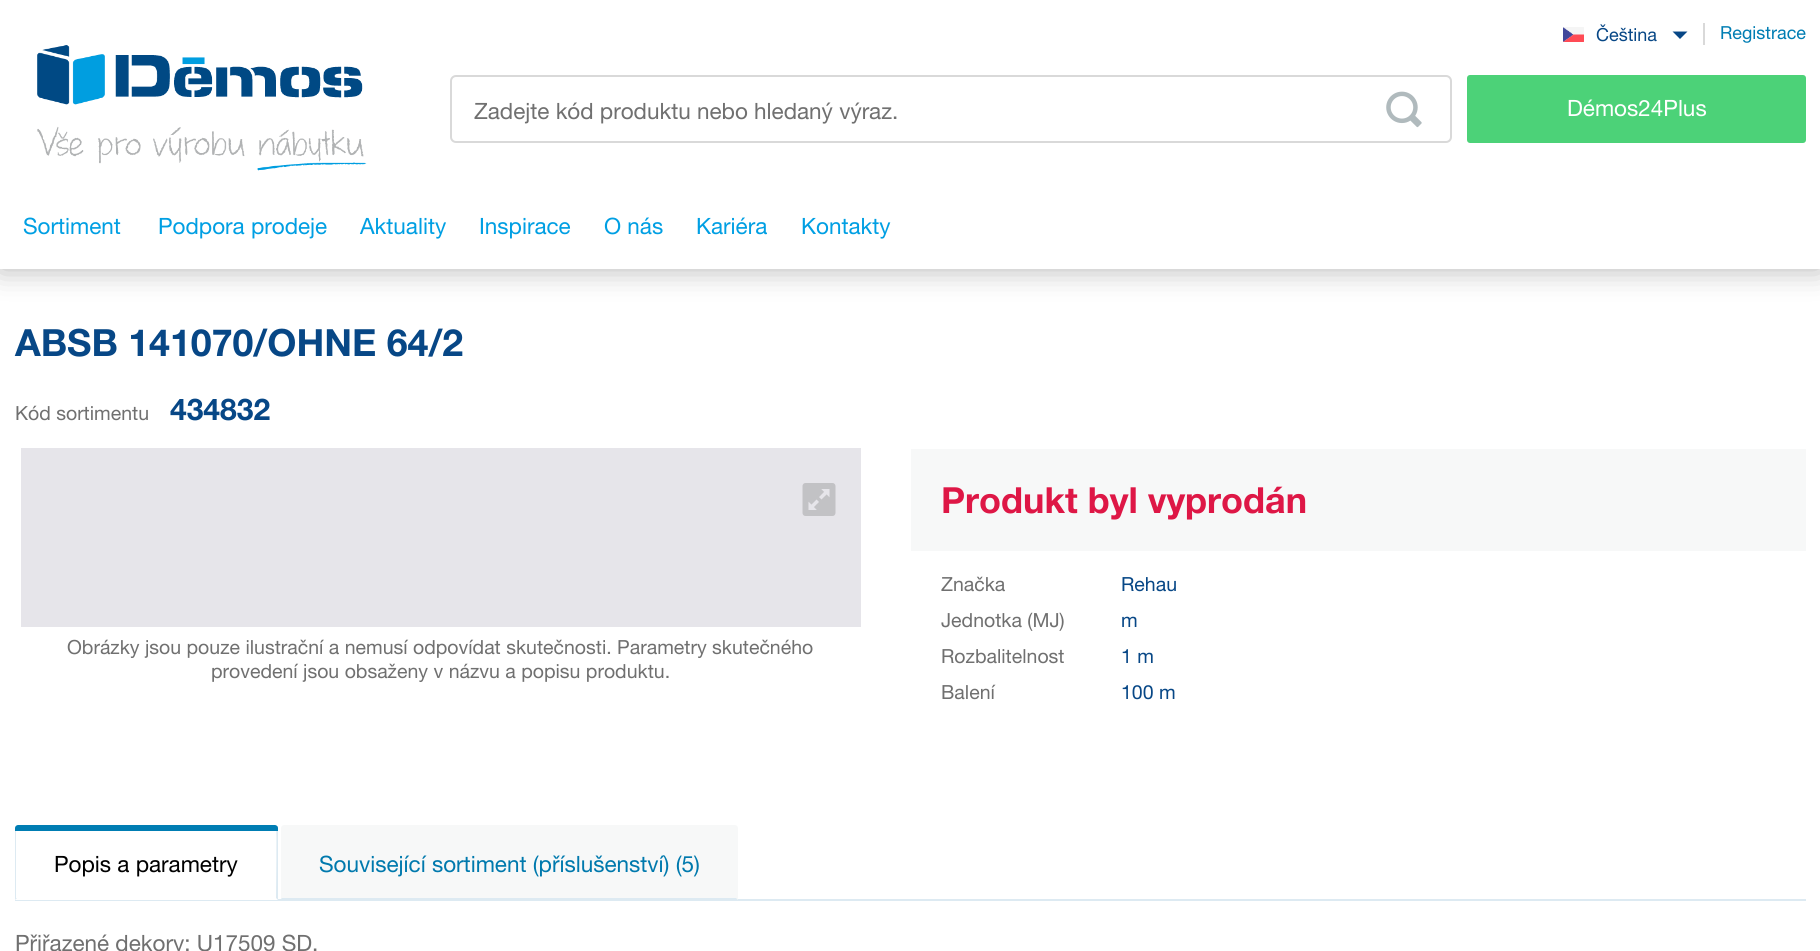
import math
import cairo

surface = cairo.ImageSurface(cairo.Format.RGB24, 1820, 951)
ctx = cairo.Context(surface)
options = cairo.FontOptions()
options.set_hint_metrics(cairo.HintMetrics.OFF)
options.set_hint_style(cairo.HintStyle.NONE)
ctx.set_font_options(options)
ctx.set_miter_limit(4)


def ink(r, g, b):
    ctx.set_source_rgb(r / 255, g / 255, b / 255)


def write(x, y, s, family, size, color, bold=False, italic=False):
    ctx.select_font_face(family, cairo.FontSlant.ITALIC if italic else cairo.FontSlant.NORMAL, cairo.FontWeight.BOLD if bold else cairo.FontWeight.NORMAL)
    ctx.set_font_size(size)
    ink(*color)
    ctx.move_to(x, y)
    ctx.show_text(s)


def block(x, y, w, h, *color):
    ink(*color)
    ctx.rectangle(x, y, w, h)
    ctx.fill()


def round_path(x, y, w, h, r):
    ctx.new_sub_path()
    for i, (u, v) in enumerate([(x + w - r, y + h - r), (x + r, y + h - r), (x + r, y + r), (x + w - r, y + r)]):
        ctx.arc(u, v, r, i * math.pi / 2, (i + 1) * math.pi / 2)
    ctx.close_path()


def blur_box(x, y, w, h, r, blur, alpha):
    ctx.push_group_with_content(cairo.Content.ALPHA)
    ctx.set_operator(cairo.Operator.SOURCE)
    for i in range(15, -16, -2):
        e = blur * i / 6
        if min(w, h) + 2 * e > 0:
            ctx.set_source_rgba(0, 0, 0, alpha * math.erfc((i - 1) / 8.5) / 2)
            round_path(x - e, y - e, w + 2 * e, h + 2 * e, max(0, min(r + e + blur * .6, min(w, h) / 2 + e)))
            ctx.fill()
    ctx.mask(ctx.pop_group())


def paste(path, x, y, w, h):
    ctx.save()
    ctx.set_source_surface(cairo.ImageSurface.create_from_png(path), x, y)
    ctx.rectangle(x, y, w, h)
    ctx.fill()
    ctx.restore()


s1 = dict(family="Helvetica Neue", size=18, color=(7, 71, 134))
s2 = dict(family="Helvetica Neue", size=18, color=(0, 125, 179))
s3 = dict(family="Helvetica Neue", size=22.5, color=(112, 112, 112))
s4 = dict(family="Helvetica Neue", size=22.5, color=(255, 255, 255))
s5 = dict(family="Helvetica Neue", size=22.5, color=(0, 159, 227))
s6 = dict(family="Helvetica Neue", size=37.5, color=(7, 71, 134), bold=True)
s7 = dict(family="Helvetica Neue", size=19.5, color=(112, 112, 112))
s8 = dict(family="Helvetica Neue", size=30, color=(7, 71, 134), bold=True)
s9 = dict(family="Helvetica Neue", size=36, color=(222, 23, 70), bold=True)
s10 = dict(family="Helvetica Neue", size=19.5, color=(7, 71, 134))
s11 = dict(family="Helvetica Neue", size=22.5, color=(0, 0, 0))
s12 = dict(family="Helvetica Neue", size=22.5, color=(0, 121, 173))

ink(255, 255, 255)
ctx.paint()
ink(0, 0, 0)
blur_box(0, 0, 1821, 269, 0, 15, 0.3)
block(0, 0, 1820, 269, 255, 255, 255)
paste("pic1.png", 1563, 27, 21, 15)
write(1596, 41, "Čeština", **s1)
ctx.new_path()
ctx.move_to(1672.5, 31.5)
ctx.line_to(1687.5, 31.5)
ctx.line_to(1680, 39)
ctx.close_path()
ctx.fill()
block(1703, 23, 2, 22, 217, 217, 217)
write(1720, 39, "Registrace", **s2)
paste("pic2.png", 37, 45, 330, 126)
round_path(451, 76, 1000, 66, 5)
ink(217, 217, 217)
ctx.stroke()
write(474, 119, "Zadejte kód produktu nebo hledaný výraz.", **s3)
paste("pic3.png", 1386, 91, 36, 37)
ink(76, 210, 120)
round_path(1467, 75, 339, 68, 3)
ctx.fill()
write(1567, 116, "Démos24Plus", **s4)
write(23, 234, "Sortiment", **s5)
write(158, 234, "Podpora prodeje", **s5)
write(360, 234, "Aktuality", **s5)
write(479, 234, "Inspirace", **s5)
write(604, 234, "O nás", **s5)
write(696, 234, "Kariéra", **s5)
write(801, 234, "Kontakty", **s5)
write(15, 356, "ABSB 141070/OHNE 64/2", **s6)
write(15, 420, "Kód sortimentu", **s7)
write(170, 420, "434832", **s8)
block(21, 448, 840, 179, 230, 229, 234)
paste("pic4.png", 802, 483, 34, 33)
write(67, 654, "Obrázky jsou pouze ilustrační a nemusí odpovídat skutečnosti. Parametry skutečného", **s7)
write(211, 678, "provedení jsou obsaženy v názvu a popisu produktu.", **s7)
block(911, 449, 895, 102, 247, 248, 248)
write(941, 513, "Produkt byl vyprodán", **s9)
write(941, 591, "Značka", **s7)
write(1121, 591, "Rehau", **s10)
write(941, 627, "Jednotka (MJ)", **s7)
write(1121, 627, "m", **s10)
write(941, 663, "Rozbalitelnost", **s7)
write(1121, 663, "1 m", **s10)
write(941, 699, "Balení", **s7)
write(1121, 699, "100 m", **s10)
block(15, 899, 1791, 2, 221, 234, 242)
ink(255, 255, 255)
ctx.new_path()
ctx.move_to(18, 825)
ctx.line_to(275, 825)
ctx.curve_to(276.5, 825, 278, 826.5, 278, 828)
ctx.line_to(278, 900)
ctx.line_to(15, 900)
ctx.line_to(15, 828)
ctx.curve_to(15, 826.5, 16.5, 825, 18, 825)
ctx.close_path()
ctx.fill()
ink(221, 234, 242)
ctx.new_path()
ctx.move_to(278, 826)
ctx.line_to(278, 900)
ctx.line_to(276, 898)
ctx.curve_to(276, 891, 277, 829, 276, 827)
ctx.line_to(277, 826)
ctx.close_path()
ctx.fill()
ctx.new_path()
ctx.move_to(15, 900)
ctx.line_to(17, 898)
ctx.line_to(16, 898)
ctx.line_to(16, 828)
ctx.line_to(17, 827)
ctx.line_to(16, 826)
ctx.line_to(15, 828)
ctx.close_path()
ctx.fill()
ink(0, 125, 179)
ctx.new_path()
ctx.move_to(18, 825)
ctx.line_to(275, 825)
ctx.curve_to(276.5, 825, 278, 826.5, 278, 828)
ctx.line_to(278, 831)
ctx.line_to(15, 831)
ctx.line_to(15, 828)
ctx.curve_to(15, 826.5, 16.5, 825, 18, 825)
ctx.close_path()
ctx.fill()
write(54, 872, "Popis a parametry", **s11)
ink(247, 248, 248)
ctx.new_path()
ctx.move_to(284, 825)
ctx.line_to(735, 825)
ctx.curve_to(736.5, 825, 738, 826.5, 738, 828)
ctx.line_to(738, 900)
ctx.line_to(281, 900)
ctx.line_to(281, 828)
ctx.curve_to(281, 826.5, 282.5, 825, 284, 825)
ctx.close_path()
ctx.fill()
ink(221, 234, 242)
ctx.new_path()
ctx.move_to(738, 900)
ctx.line_to(736, 898)
ctx.line_to(282, 898)
ctx.line_to(280, 900)
ctx.close_path()
ctx.fill()
write(319, 872, "Související sortiment (příslušenství) (5)", **s12)
write(15, 951, "Přiřazené dekory: U17509 SD.", **s3)
surface.write_to_png("screenshot.png")
